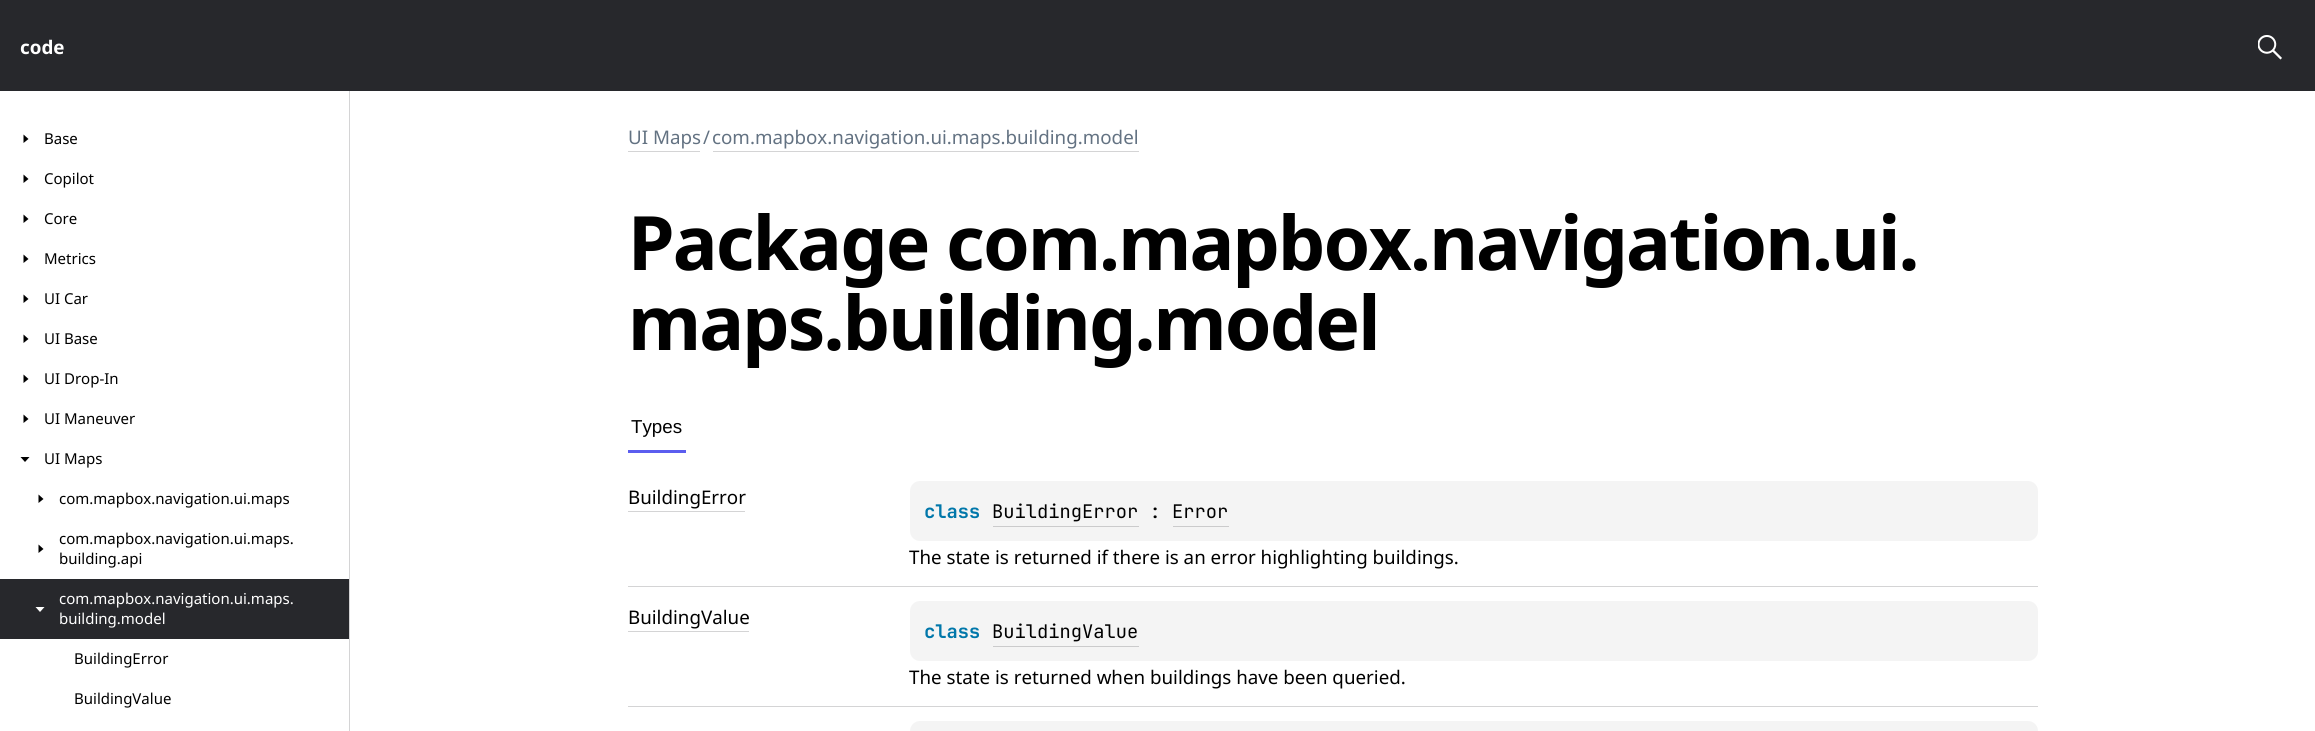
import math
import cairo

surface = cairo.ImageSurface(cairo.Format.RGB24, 2315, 731)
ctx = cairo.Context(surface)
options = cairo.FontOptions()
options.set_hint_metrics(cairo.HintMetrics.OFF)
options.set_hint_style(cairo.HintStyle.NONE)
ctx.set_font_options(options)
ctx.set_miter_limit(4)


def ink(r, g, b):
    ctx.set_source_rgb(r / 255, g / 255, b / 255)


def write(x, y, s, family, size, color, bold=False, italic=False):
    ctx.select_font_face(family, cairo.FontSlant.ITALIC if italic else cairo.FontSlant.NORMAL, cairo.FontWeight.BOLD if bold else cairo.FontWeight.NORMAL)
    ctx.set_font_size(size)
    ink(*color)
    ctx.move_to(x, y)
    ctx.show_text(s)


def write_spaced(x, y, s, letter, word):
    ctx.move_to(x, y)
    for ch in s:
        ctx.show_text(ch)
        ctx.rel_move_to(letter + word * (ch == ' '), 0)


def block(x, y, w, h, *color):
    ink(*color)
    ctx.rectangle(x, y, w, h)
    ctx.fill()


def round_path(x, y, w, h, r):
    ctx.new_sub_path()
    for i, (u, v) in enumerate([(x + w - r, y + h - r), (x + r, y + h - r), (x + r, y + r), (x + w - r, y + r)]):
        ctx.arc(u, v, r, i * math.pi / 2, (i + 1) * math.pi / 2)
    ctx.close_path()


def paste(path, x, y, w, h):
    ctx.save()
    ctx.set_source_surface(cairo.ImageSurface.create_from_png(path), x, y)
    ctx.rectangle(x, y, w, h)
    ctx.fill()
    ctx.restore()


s1 = dict(family="Noto Sans", size=18.75, color=(255, 255, 255), bold=True)
s2 = dict(family="Noto Sans", size=15, color=(0, 0, 0))
s3 = dict(family="Noto Sans", size=15, color=(255, 255, 255))
s4 = dict(family="Noto Sans", size=18.75, color=(99, 114, 130))
s5 = dict(family="Liberation Sans", size=18.75, color=(0, 0, 0))
s6 = dict(family="Noto Sans", size=18.75, color=(0, 0, 0))
s7 = dict(family="JetBrains Mono", size=18.75, color=(0, 119, 170), bold=True)
s8 = dict(family="JetBrains Mono", size=18.75, color=(0, 0, 0))

ink(255, 255, 255)
ctx.paint()
block(0, 0, 2315, 91, 39, 40, 44)
write(20, 54, "code", **s1)
paste("pic1.png", 2258, 35, 24, 25)
block(349, 91, 1, 640, 212, 212, 213)
ink(0, 0, 0)
ctx.new_path()
ctx.move_to(28.5, 139)
ctx.line_to(23.5, 143)
ctx.line_to(23.5, 134.5)
ctx.close_path()
ctx.fill()
write(44, 144, "Base", **s2)
ctx.new_path()
ctx.move_to(28.5, 179)
ctx.line_to(23.5, 183)
ctx.line_to(23.5, 174.5)
ctx.close_path()
ctx.fill()
write(44, 184, "Copilot", **s2)
ctx.new_path()
ctx.move_to(28.5, 219)
ctx.line_to(23.5, 223)
ctx.line_to(23.5, 214.5)
ctx.close_path()
ctx.fill()
write(44, 224, "Core", **s2)
ctx.new_path()
ctx.move_to(28.5, 259)
ctx.line_to(23.5, 263)
ctx.line_to(23.5, 254.5)
ctx.close_path()
ctx.fill()
write(44, 264, "Metrics", **s2)
ctx.new_path()
ctx.move_to(28.5, 299)
ctx.line_to(23.5, 303)
ctx.line_to(23.5, 294.5)
ctx.close_path()
ctx.fill()
write(44, 304, "UI Car", **s2)
ctx.new_path()
ctx.move_to(28.5, 339)
ctx.line_to(23.5, 343)
ctx.line_to(23.5, 334.5)
ctx.close_path()
ctx.fill()
write(44, 344, "UI Base", **s2)
ctx.new_path()
ctx.move_to(28.5, 379)
ctx.line_to(23.5, 383)
ctx.line_to(23.5, 374.5)
ctx.close_path()
ctx.fill()
write(44, 384, "UI Drop-In", **s2)
ctx.new_path()
ctx.move_to(28.5, 419)
ctx.line_to(23.5, 423)
ctx.line_to(23.5, 414.5)
ctx.close_path()
ctx.fill()
write(44, 424, "UI Maneuver", **s2)
ctx.new_path()
ctx.move_to(25, 462)
ctx.line_to(20.5, 457)
ctx.line_to(29.5, 457)
ctx.close_path()
ctx.fill()
write(44, 464, "UI Maps", **s2)
ctx.new_path()
ctx.move_to(43.5, 499)
ctx.line_to(38.5, 503)
ctx.line_to(38.5, 494.5)
ctx.close_path()
ctx.fill()
write(59, 504, "com.mapbox.navigation.ui.maps", **s2)
ctx.new_path()
ctx.move_to(43.5, 549)
ctx.line_to(38.5, 553)
ctx.line_to(38.5, 544.5)
ctx.close_path()
ctx.fill()
write(59, 544, "com.mapbox.navigation.ui.maps.", **s2)
write(59, 564, "building.api", **s2)
block(0, 579, 349, 60, 39, 40, 44)
ink(255, 255, 255)
ctx.new_path()
ctx.move_to(40, 612)
ctx.line_to(35.5, 607)
ctx.line_to(44.5, 607)
ctx.close_path()
ctx.fill()
write(59, 604, "com.mapbox.navigation.ui.maps.", **s3)
write(59, 624, "building.model", **s3)
write(74, 664, "BuildingError", **s2)
write(74, 704, "BuildingValue", **s2)
write(628, 144, "UI Maps", **s4)
block(628, 151, 72, 1, 212, 212, 213)
write(703, 144, "/", **s4)
write(712, 144, "com.mapbox.navigation.ui.maps.building.model", **s4)
block(713, 151, 426, 1, 212, 212, 213)
ctx.select_font_face("Noto Sans", cairo.FontSlant.NORMAL, cairo.FontWeight.BOLD)
ctx.set_font_size(75)
ink(0, 0, 0)
write_spaced(628, 270, "Package com.mapbox.navigation.ui.", -1.9, 0)
write_spaced(628, 350, "maps.building.model", -1.9, 0)
block(628, 450, 58, 3, 91, 93, 239)
write(631, 433, "Types", **s5)
block(628, 586, 1410, 1, 212, 212, 213)
write(628, 504, "BuildingError", **s6)
block(628, 511, 117, 1, 212, 212, 213)
ink(244, 244, 244)
round_path(910, 481, 1128, 60, 10)
ctx.fill()
write(924, 518, "class", **s7)
write(992, 518, "BuildingError : Error", **s8)
block(993, 526, 146, 1, 203, 203, 204)
block(1173, 526, 56, 1, 203, 203, 204)
write(909, 564, "The state is returned if there is an error highlighting buildings.", **s6)
block(628, 706, 1410, 1, 212, 212, 213)
write(628, 624, "BuildingValue", **s6)
block(628, 631, 121, 1, 212, 212, 213)
ink(244, 244, 244)
round_path(910, 601, 1128, 60, 10)
ctx.fill()
write(924, 638, "class", **s7)
write(992, 638, "BuildingValue", **s8)
block(993, 646, 146, 1, 203, 203, 204)
write(909, 684, "The state is returned when buildings have been queried.", **s6)
ink(244, 244, 244)
ctx.new_path()
ctx.move_to(920, 721)
ctx.line_to(2028, 721)
ctx.curve_to(2033.5, 721, 2038, 725.5, 2038, 731)
ctx.line_to(910, 731)
ctx.curve_to(910, 725.5, 914.5, 721, 920, 721)
ctx.close_path()
ctx.fill()
surface.write_to_png("screenshot.png")
